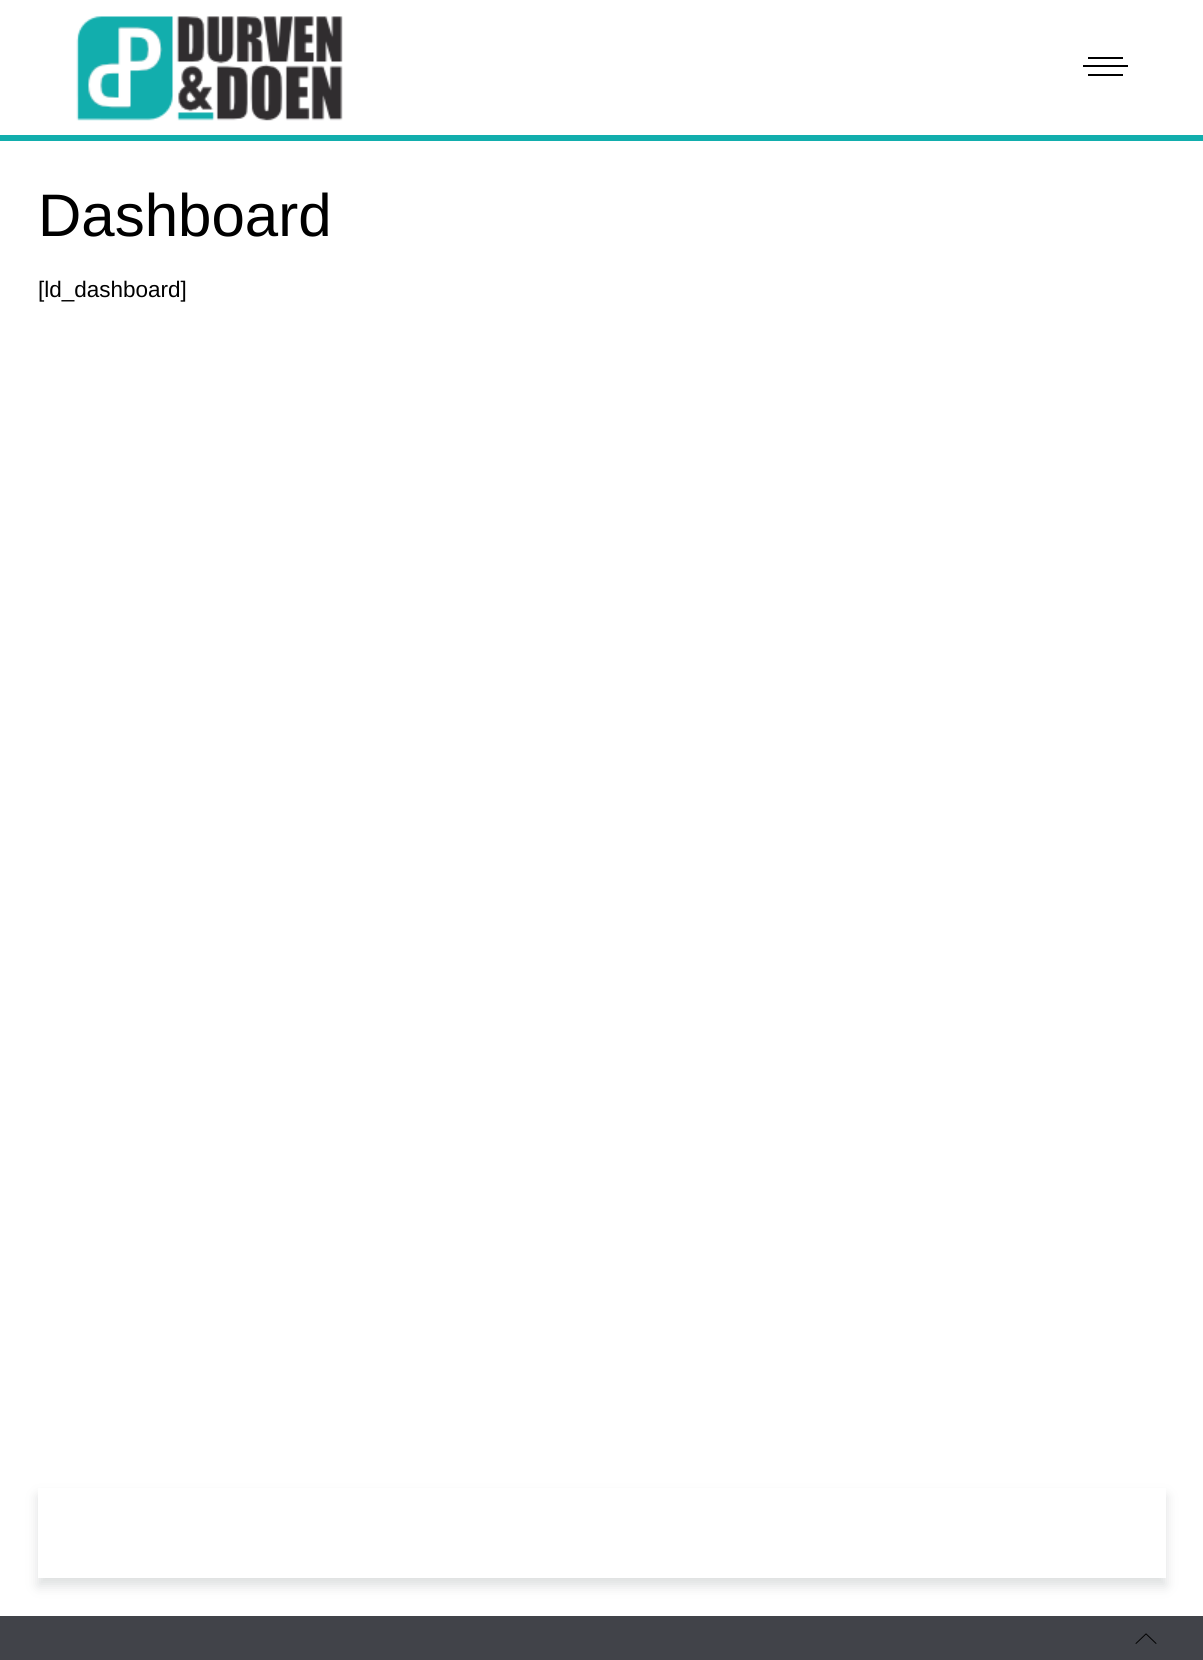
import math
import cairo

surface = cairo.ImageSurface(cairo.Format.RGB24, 1203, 1660)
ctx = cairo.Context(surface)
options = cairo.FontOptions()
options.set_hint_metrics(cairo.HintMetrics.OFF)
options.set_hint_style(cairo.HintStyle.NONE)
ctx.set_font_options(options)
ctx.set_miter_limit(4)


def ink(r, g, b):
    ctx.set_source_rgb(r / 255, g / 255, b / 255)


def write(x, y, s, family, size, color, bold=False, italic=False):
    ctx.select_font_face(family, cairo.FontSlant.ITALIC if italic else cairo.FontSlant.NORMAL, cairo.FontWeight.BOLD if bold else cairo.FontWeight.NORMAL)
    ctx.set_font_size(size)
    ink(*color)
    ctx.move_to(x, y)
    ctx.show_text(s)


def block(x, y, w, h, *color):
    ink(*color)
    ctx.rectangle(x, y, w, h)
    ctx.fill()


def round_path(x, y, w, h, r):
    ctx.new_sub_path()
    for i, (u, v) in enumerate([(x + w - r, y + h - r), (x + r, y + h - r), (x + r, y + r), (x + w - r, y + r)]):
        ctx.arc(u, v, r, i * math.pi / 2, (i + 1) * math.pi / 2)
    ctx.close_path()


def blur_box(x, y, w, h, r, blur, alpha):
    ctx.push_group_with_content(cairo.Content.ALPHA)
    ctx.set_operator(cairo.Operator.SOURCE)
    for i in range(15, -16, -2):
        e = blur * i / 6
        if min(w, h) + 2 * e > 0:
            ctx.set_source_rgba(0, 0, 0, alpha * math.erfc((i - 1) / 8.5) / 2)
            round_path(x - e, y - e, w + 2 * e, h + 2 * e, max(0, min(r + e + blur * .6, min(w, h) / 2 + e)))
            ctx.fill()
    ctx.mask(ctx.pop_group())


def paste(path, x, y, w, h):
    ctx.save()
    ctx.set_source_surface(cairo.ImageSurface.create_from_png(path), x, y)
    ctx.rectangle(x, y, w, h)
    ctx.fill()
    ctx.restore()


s1 = dict(family="Liberation Sans", size=60, color=(0, 0, 0))
s2 = dict(family="Liberation Sans", size=22.5, color=(0, 0, 0))

ink(255, 255, 255)
ctx.paint()
block(0, 135, 1203, 6, 18, 174, 173)
paste("pic1.png", 76, 16, 267, 105)
ink(0, 0, 0)
ctx.new_path()
ctx.move_to(1088, 57)
ctx.line_to(1123, 57)
ctx.line_to(1123, 59)
ctx.line_to(1088, 59)
ctx.close_path()
ctx.move_to(1088, 74)
ctx.line_to(1123, 74)
ctx.line_to(1123, 76)
ctx.line_to(1088, 76)
ctx.close_path()
ctx.move_to(1083, 65)
ctx.line_to(1128, 65)
ctx.line_to(1128, 67)
ctx.line_to(1083, 67)
ctx.close_path()
ctx.fill()
write(38, 236, "Dashboard", **s1)
write(38, 297, "[ld_dashboard]", **s2)
ink(160, 166, 168)
blur_box(38, 1496, 1128, 90, 0, 6, 0.35)
block(38, 1488, 1128, 90, 255, 255, 255)
block(0, 1616, 1203, 44, 65, 67, 73)
paste("pic2.png", 1135, 1633, 22, 11)
surface.write_to_png("screenshot.png")
